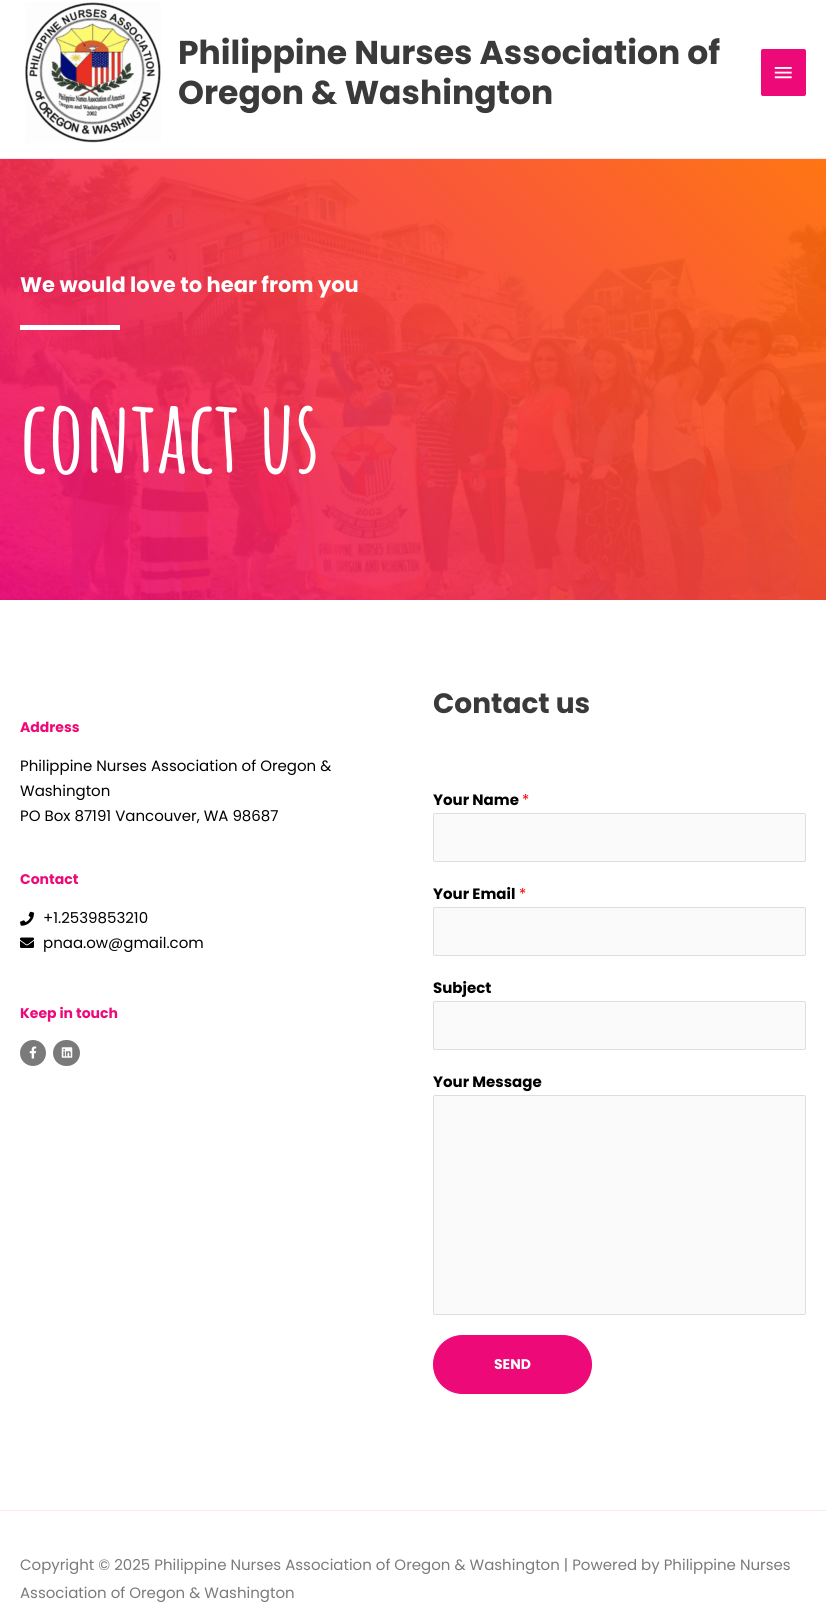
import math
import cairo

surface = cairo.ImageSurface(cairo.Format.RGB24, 826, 1604)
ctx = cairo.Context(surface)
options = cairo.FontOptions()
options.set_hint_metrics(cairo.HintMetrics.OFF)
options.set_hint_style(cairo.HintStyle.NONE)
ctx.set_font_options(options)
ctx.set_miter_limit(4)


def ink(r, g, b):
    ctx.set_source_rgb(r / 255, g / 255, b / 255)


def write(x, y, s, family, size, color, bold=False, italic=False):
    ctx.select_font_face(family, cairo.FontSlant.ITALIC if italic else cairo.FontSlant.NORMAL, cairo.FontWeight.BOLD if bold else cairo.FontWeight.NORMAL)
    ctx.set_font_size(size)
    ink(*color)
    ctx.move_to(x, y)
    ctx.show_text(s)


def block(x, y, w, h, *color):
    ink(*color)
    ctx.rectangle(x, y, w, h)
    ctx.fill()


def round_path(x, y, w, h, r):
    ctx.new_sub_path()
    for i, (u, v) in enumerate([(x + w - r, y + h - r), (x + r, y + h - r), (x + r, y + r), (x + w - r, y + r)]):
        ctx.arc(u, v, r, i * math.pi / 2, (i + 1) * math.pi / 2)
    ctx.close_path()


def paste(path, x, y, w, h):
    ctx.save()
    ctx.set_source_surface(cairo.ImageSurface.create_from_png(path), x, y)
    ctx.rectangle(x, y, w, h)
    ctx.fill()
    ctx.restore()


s1 = dict(family="Poppins", size=33, color=(58, 58, 58), bold=True)
s2 = dict(family="Poppins", size=21, color=(255, 255, 255), bold=True)
s3 = dict(family="Amatic SC", size=100, color=(255, 255, 255), bold=True)
s4 = dict(family="Poppins", size=14, color=(238, 9, 121), bold=True)
s5 = dict(family="Poppins", size=15, color=(0, 0, 0))
s6 = dict(family="Poppins", size=28, color=(58, 58, 58), bold=True)
s7 = dict(family="Poppins", size=15, color=(0, 0, 0), bold=True)
s8 = dict(family="Poppins", size=15, color=(255, 0, 0))
s9 = dict(family="Poppins", size=14, color=(255, 255, 255), bold=True)
s10 = dict(family="Poppins", size=15, color=(122, 122, 122))

ink(255, 255, 255)
ctx.paint()
block(0, 158, 826, 1, 253, 230, 241)
paste("pic1.png", 25, 2, 136, 141)
write(178, 64, "Philippine Nurses Association of", **s1)
write(178, 104, "Oregon & Washington", **s1)
ink(238, 9, 121)
round_path(761, 49, 45, 47, 2)
ctx.fill()
paste("pic2.png", 774, 67, 18, 12)
paste("pic3.png", 0, 159, 826, 441)
write(20, 292, "We would love to hear from you", **s2)
block(20, 325, 100, 5, 255, 255, 255)
write(20, 473, "contact us", **s3)
write(20, 732, "Address", **s4)
write(20, 771, "Philippine Nurses Association of Oregon &", **s5)
write(20, 796, "Washington", **s5)
write(20, 821, "PO Box 87191 Vancouver, WA 98687", **s5)
write(20, 884, "Contact", **s4)
paste("pic4.png", 20, 911, 14, 15)
write(43, 923, "+1.2539853210", **s5)
paste("pic5.png", 20, 937, 14, 11)
write(43, 948, "pnaa.ow@gmail.com", **s5)
write(20, 1018, "Keep in touch", **s4)
ink(122, 122, 122)
ctx.new_path()
ctx.arc(33, 1053, 13, 0, 2 * math.pi)
ctx.fill()
paste("pic6.png", 29, 1046, 8, 13)
round_path(53, 1040, 27, 26, 13)
ctx.fill()
paste("pic7.png", 61, 1047, 12, 11)
write(433, 713, "Contact us", **s6)
write(433, 805, "Your Name", **s7)
write(522, 805, "*", **s8)
ink(250, 250, 250)
round_path(433.5, 813.5, 372, 48, 1.5)
ctx.fill_preserve()
ink(221, 221, 221)
ctx.set_line_width(1)
ctx.stroke()
write(433, 899, "Your Email", **s7)
write(519, 899, "*", **s8)
ink(250, 250, 250)
round_path(433.5, 907.5, 372, 48, 1.5)
ctx.fill_preserve()
ink(221, 221, 221)
ctx.stroke()
write(433, 993, "Subject", **s7)
ink(250, 250, 250)
round_path(433.5, 1001.5, 372, 48, 1.5)
ctx.fill_preserve()
ink(221, 221, 221)
ctx.stroke()
write(433, 1087, "Your Message", **s7)
ink(250, 250, 250)
round_path(433.5, 1095.5, 372, 219, 1.5)
ctx.fill_preserve()
ink(221, 221, 221)
ctx.stroke()
ink(238, 9, 121)
round_path(433.5, 1335.5, 158, 58, 29)
ctx.fill_preserve()
ctx.stroke()
write(494, 1369, "SEND", **s9)
block(0, 1510, 826, 1, 253, 230, 241)
write(20, 1570, "Copyright © 2025 Philippine Nurses Association of Oregon & Washington | Powered by Philippine Nurses", **s10)
write(20, 1598, "Association of Oregon & Washington", **s10)
surface.write_to_png("screenshot.png")
